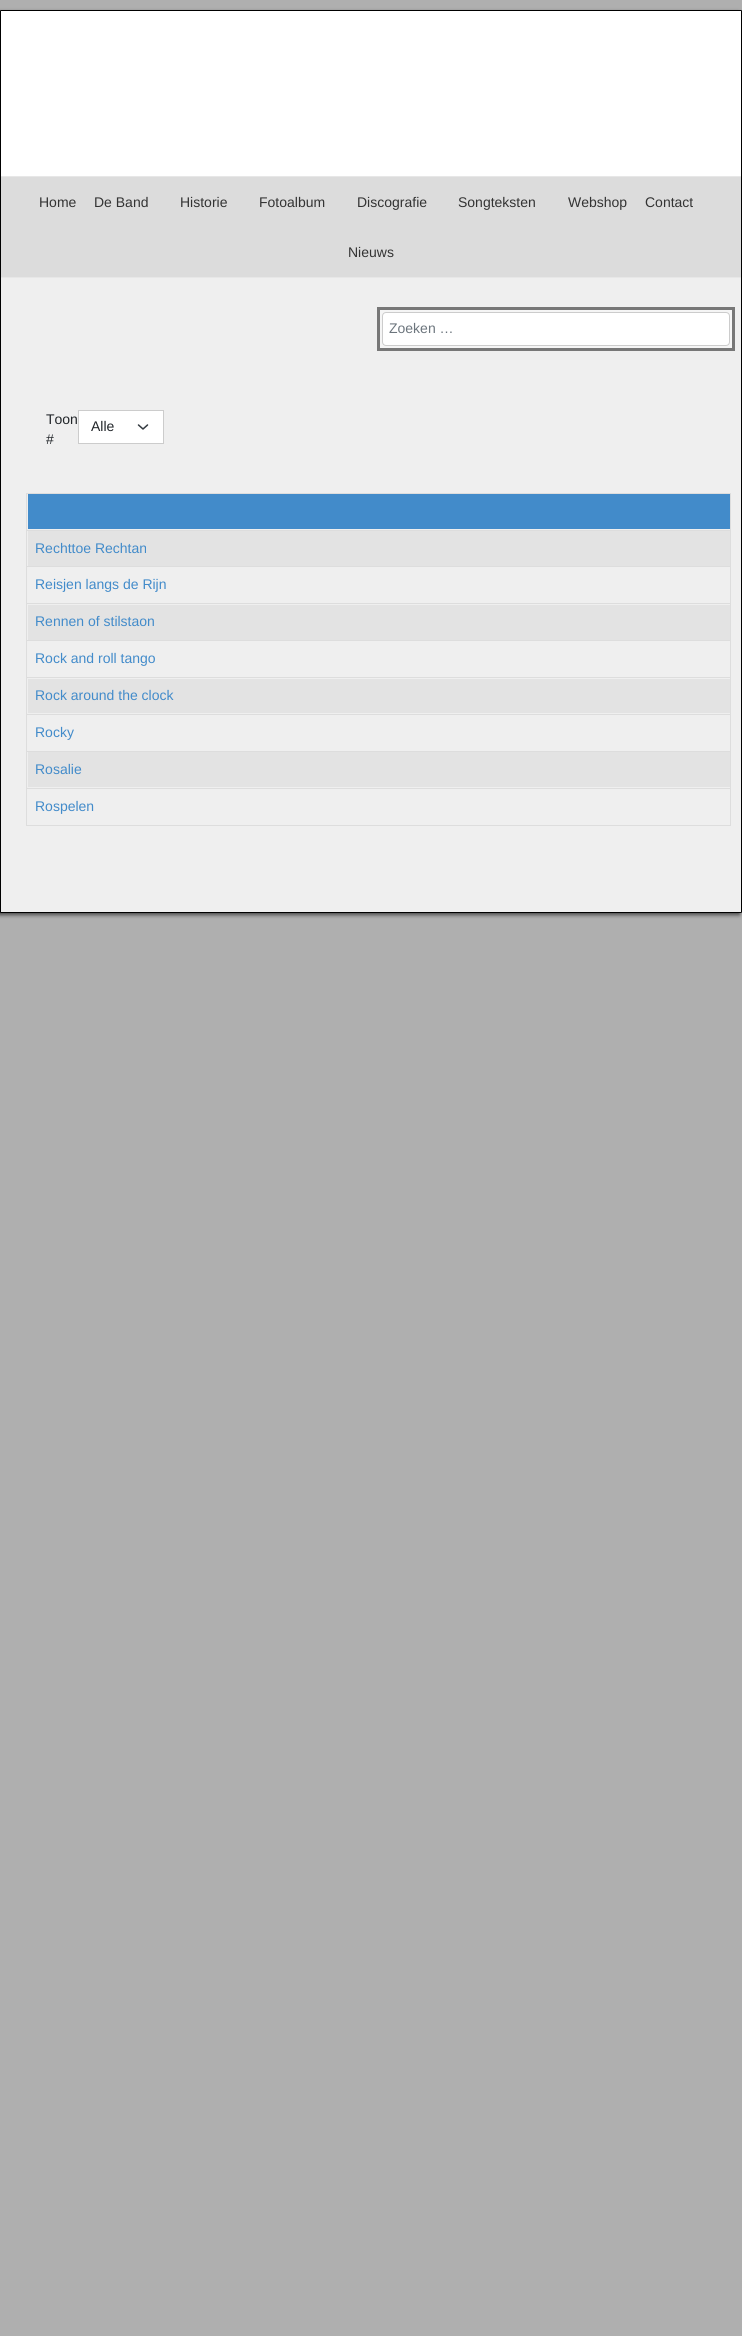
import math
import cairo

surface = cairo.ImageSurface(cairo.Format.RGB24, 742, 2336)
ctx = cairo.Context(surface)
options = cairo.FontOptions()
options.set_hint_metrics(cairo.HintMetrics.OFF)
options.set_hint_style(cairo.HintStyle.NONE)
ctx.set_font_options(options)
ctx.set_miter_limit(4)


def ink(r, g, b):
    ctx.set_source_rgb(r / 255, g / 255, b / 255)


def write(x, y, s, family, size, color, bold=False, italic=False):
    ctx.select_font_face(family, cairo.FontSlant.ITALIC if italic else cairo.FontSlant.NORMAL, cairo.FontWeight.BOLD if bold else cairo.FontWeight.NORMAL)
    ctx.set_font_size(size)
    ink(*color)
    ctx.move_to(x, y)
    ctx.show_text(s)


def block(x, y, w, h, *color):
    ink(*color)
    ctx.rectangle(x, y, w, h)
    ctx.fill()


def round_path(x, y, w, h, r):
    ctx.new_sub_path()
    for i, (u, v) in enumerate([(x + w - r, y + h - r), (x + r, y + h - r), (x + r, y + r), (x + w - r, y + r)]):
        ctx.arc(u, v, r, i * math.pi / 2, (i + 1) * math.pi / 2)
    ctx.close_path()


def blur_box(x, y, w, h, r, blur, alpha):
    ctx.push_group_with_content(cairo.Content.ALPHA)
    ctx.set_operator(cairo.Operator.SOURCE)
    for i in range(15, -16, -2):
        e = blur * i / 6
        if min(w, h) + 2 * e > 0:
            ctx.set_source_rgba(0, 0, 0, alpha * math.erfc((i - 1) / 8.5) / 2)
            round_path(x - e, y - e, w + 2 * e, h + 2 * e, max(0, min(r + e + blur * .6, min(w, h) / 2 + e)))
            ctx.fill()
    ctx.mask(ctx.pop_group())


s1 = dict(family="Liberation Sans", size=14, color=(51, 51, 51))
s2 = dict(family="Liberation Sans", size=14, color=(108, 117, 125))
s3 = dict(family="Liberation Sans", size=14, color=(33, 37, 41))
s4 = dict(family="Liberation Sans", size=14, color=(66, 139, 202))

ink(175, 175, 175)
ctx.paint()
ink(0, 0, 0)
blur_box(-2, 12, 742, 903, 1, 2, 0.59)
block(1, 278, 740, 634, 239, 239, 239)
round_path(0.5, 10.5, 741, 902, 0.5)
ink(0, 0, 0)
ctx.set_line_width(1)
ctx.stroke()
block(1, 11, 740, 165, 255, 255, 255)
block(1, 177, 740, 100, 220, 220, 220)
block(1, 176, 740, 1, 231, 231, 231)
block(1, 277, 740, 1, 231, 231, 231)
write(39, 207, "Home", **s1)
write(94, 207, "De Band", **s1)
write(180, 207, "Historie", **s1)
write(259, 207, "Fotoalbum", **s1)
write(357, 207, "Discografie", **s1)
write(458, 207, "Songteksten", **s1)
write(568, 207, "Webshop", **s1)
write(645, 207, "Contact", **s1)
write(348, 257, "Nieuws", **s1)
block(377, 307, 358, 44, 119, 119, 119)
block(380, 310, 352, 38, 245, 245, 245)
ink(255, 255, 255)
round_path(382.5, 312.5, 347, 33, 3.5)
ctx.fill_preserve()
ink(204, 204, 204)
ctx.stroke()
write(389, 333, "Zoeken …", **s2)
write(46, 424, "Toon", **s3)
write(46, 444, "#", **s3)
block(79, 411, 84, 32, 255, 255, 255)
ctx.new_path()
ctx.move_to(138.5, 425)
ctx.line_to(143, 429)
ctx.line_to(147.5, 425)
ink(52, 58, 64)
ctx.set_line_width(1.5)
ctx.set_line_cap(cairo.LineCap.ROUND)
ctx.set_line_join(cairo.LineJoin.ROUND)
ctx.stroke()
ctx.rectangle(78.5, 410.5, 85, 33)
ink(204, 204, 204)
ctx.set_line_width(1)
ctx.set_line_cap(cairo.LineCap.BUTT)
ctx.set_line_join(cairo.LineJoin.MITER)
ctx.stroke()
write(91, 431, "Alle", **s3)
block(26, 493, 705, 1, 221, 221, 221)
block(730, 493, 1, 333, 221, 221, 221)
block(26, 825, 705, 1, 221, 221, 221)
block(26, 493, 1, 333, 221, 221, 221)
block(28, 494, 702, 35, 66, 139, 202)
block(28, 531, 702, 35, 227, 227, 227)
block(26, 530, 705, 1, 221, 221, 221)
write(35, 553, "Rechttoe Rechtan", **s4)
block(26, 566, 705, 1, 221, 221, 221)
write(35, 589, "Reisjen langs de Rijn", **s4)
block(28, 605, 702, 35, 227, 227, 227)
block(26, 603, 705, 1, 221, 221, 221)
write(35, 626, "Rennen of stilstaon", **s4)
block(26, 640, 705, 1, 221, 221, 221)
write(35, 663, "Rock and roll tango", **s4)
block(28, 679, 702, 34, 227, 227, 227)
block(26, 677, 705, 1, 221, 221, 221)
write(35, 700, "Rock around the clock", **s4)
block(26, 714, 705, 1, 221, 221, 221)
write(35, 737, "Rocky", **s4)
block(28, 752, 702, 35, 227, 227, 227)
block(26, 751, 705, 1, 221, 221, 221)
write(35, 774, "Rosalie", **s4)
block(26, 788, 705, 1, 221, 221, 221)
write(35, 811, "Rospelen", **s4)
surface.write_to_png("screenshot.png")
